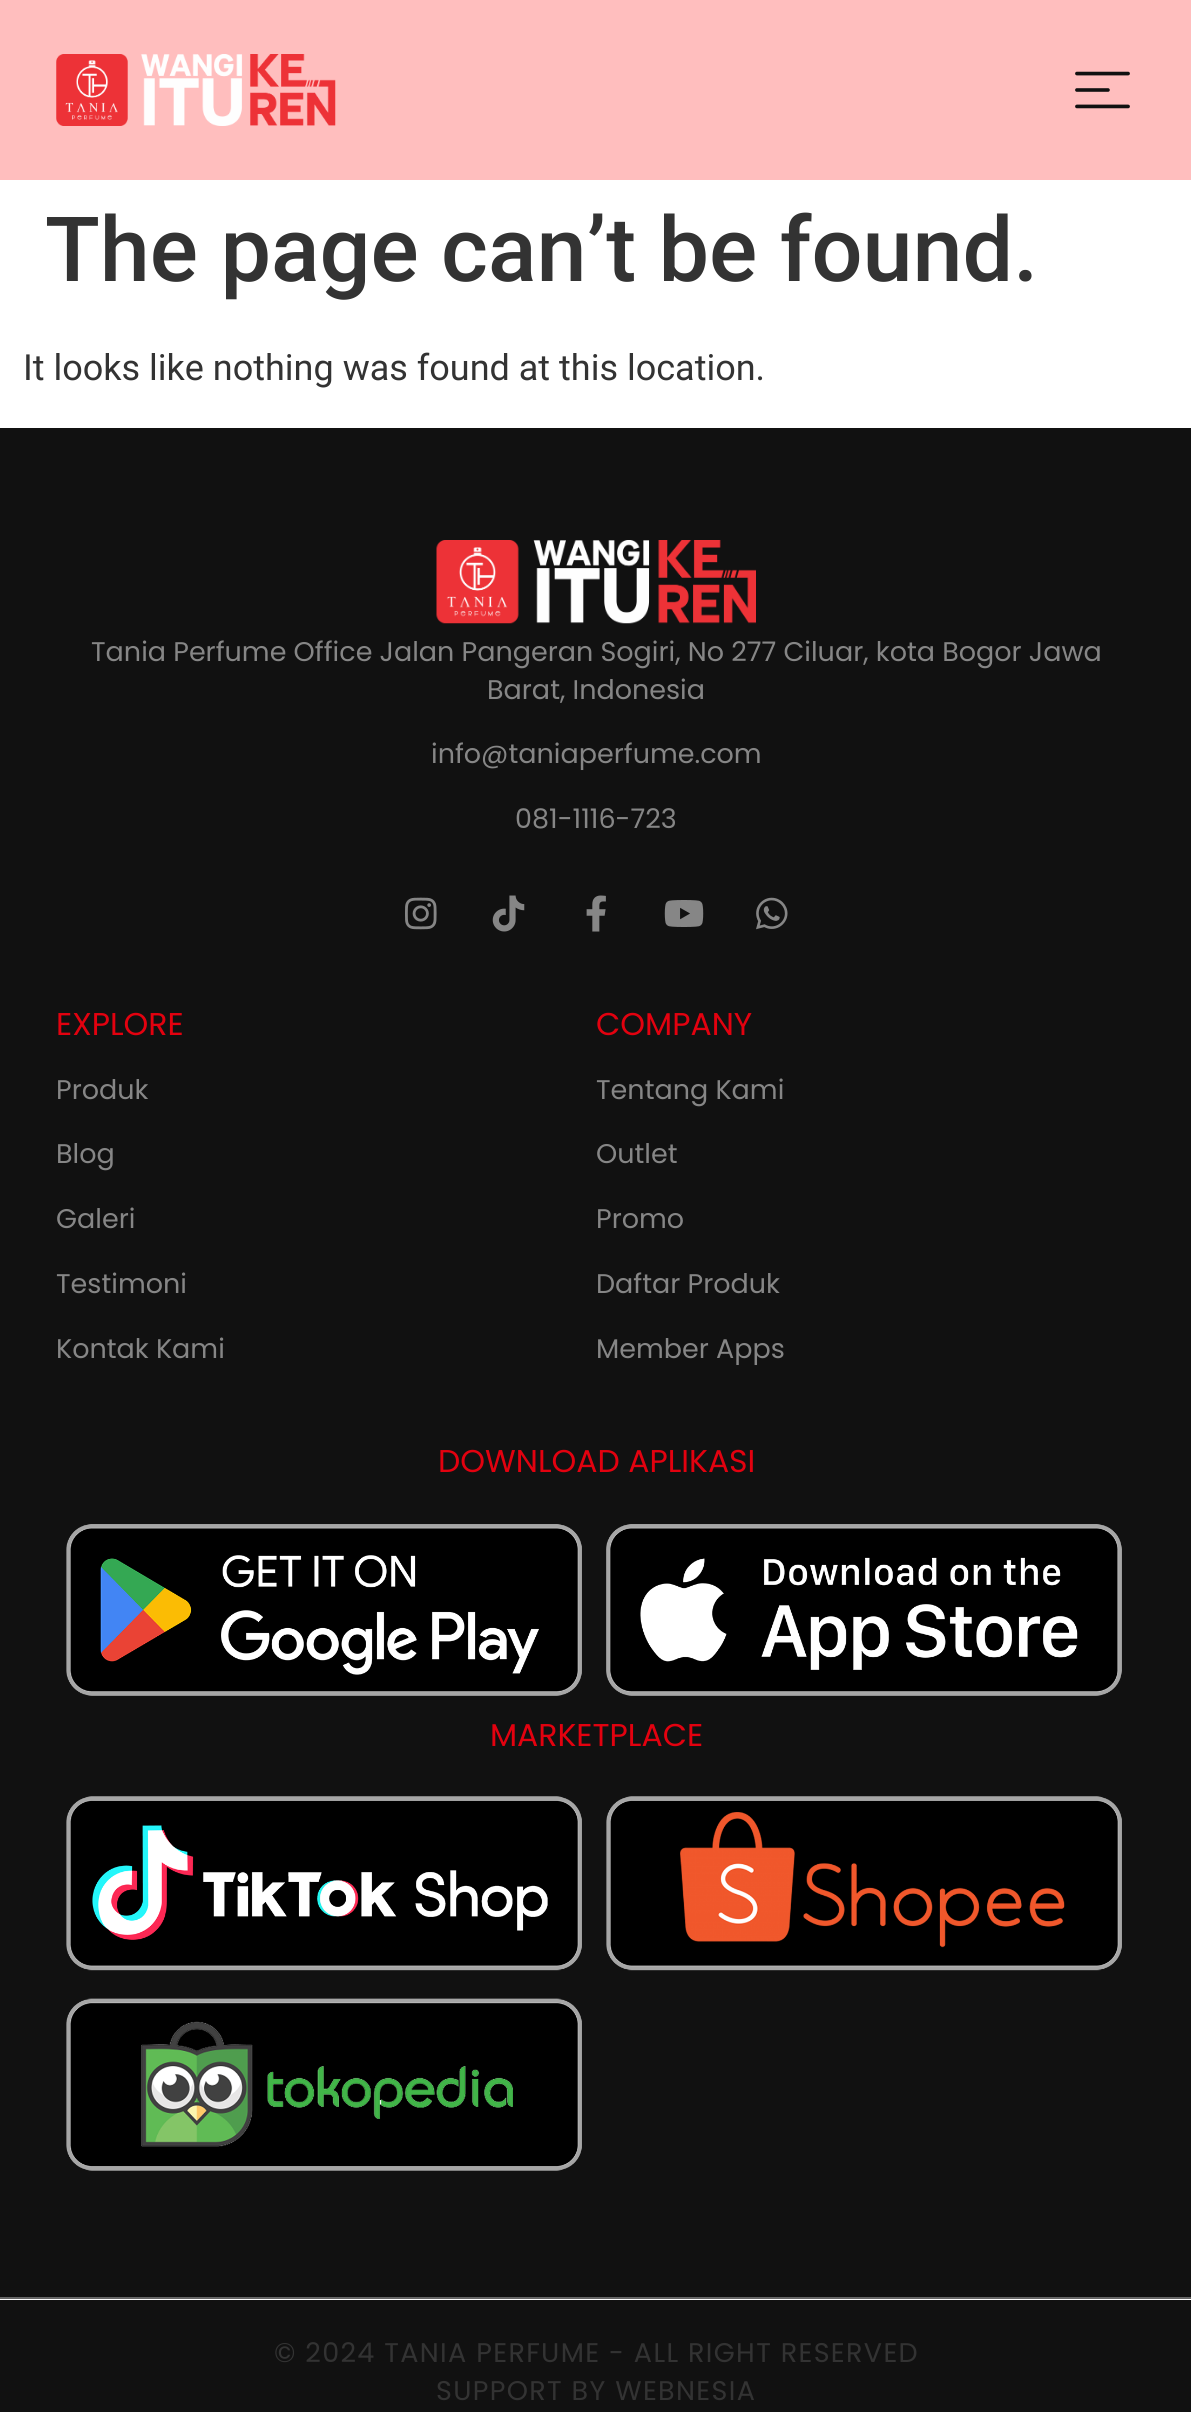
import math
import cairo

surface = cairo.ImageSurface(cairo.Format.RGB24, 1191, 2412)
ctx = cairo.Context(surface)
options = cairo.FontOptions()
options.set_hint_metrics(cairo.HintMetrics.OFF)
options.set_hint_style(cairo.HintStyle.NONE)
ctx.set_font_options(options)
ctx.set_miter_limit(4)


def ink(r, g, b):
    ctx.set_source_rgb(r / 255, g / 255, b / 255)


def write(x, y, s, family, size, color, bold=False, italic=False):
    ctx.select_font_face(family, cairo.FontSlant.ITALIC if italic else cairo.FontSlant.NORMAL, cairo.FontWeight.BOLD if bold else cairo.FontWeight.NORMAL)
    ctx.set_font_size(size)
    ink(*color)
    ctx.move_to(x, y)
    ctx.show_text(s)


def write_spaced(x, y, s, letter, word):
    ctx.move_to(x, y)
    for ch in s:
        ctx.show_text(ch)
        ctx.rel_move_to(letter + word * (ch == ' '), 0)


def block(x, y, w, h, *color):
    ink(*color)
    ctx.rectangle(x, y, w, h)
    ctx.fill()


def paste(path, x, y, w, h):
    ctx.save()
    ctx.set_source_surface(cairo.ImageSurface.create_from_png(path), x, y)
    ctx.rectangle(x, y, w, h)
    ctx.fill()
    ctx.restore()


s1 = dict(family="Roboto Medium", size=90, color=(51, 51, 51))
s2 = dict(family="Roboto", size=36, color=(51, 51, 51))
s3 = dict(family="Poppins", size=27, color=(134, 134, 134))
s4 = dict(family="Poppins", size=31.5, color=(227, 1, 15))

ink(255, 255, 255)
ctx.paint()
block(0, 0, 1191, 180, 255, 190, 190)
paste("pic1.png", 56, 54, 280, 72)
paste("pic2.png", 1075, 71, 55, 38)
write(45, 281, "The page can’t be found.", **s1)
write(23, 380, "It looks like nothing was found at this location.", **s2)
block(0, 428, 1191, 1869, 17, 17, 17)
paste("pic3.png", 436, 540, 320, 84)
write(91, 661, "Tania Perfume Office Jalan Pangeran Sogiri, No 277 Ciluar, kota Bogor Jawa", **s3)
write(487, 699, "Barat, Indonesia", **s3)
write(431, 763, "info@taniaperfume.com", **s3)
write(515, 828, "081-1116-723", **s3)
paste("pic4.png", 405, 897, 32, 33)
paste("pic5.png", 492, 895, 33, 37)
paste("pic6.png", 586, 895, 20, 37)
paste("pic7.png", 664, 900, 40, 27)
paste("pic8.png", 756, 897, 32, 33)
write(56, 1035, "EXPLORE", **s4)
write(56, 1099, "Produk", **s3)
write(56, 1163, "Blog", **s3)
write(56, 1228, "Galeri", **s3)
write(56, 1293, "Testimoni", **s3)
write(56, 1358, "Kontak Kami", **s3)
write(596, 1035, "COMPANY", **s4)
write(596, 1099, "Tentang Kami", **s3)
write(596, 1163, "Outlet", **s3)
write(596, 1228, "Promo", **s3)
write(596, 1293, "Daftar Produk", **s3)
write(596, 1358, "Member Apps", **s3)
write(438, 1472, "DOWNLOAD APLIKASI", **s4)
paste("pic9.png", 66, 1524, 516, 172)
paste("pic10.png", 606, 1524, 516, 172)
write(490, 1746, "MARKETPLACE", **s4)
paste("pic11.png", 66, 1796, 516, 175)
paste("pic12.png", 606, 1796, 516, 175)
paste("pic13.png", 66, 1998, 516, 173)
block(0, 2300, 1191, 112, 17, 17, 17)
block(0, 2297, 1191, 2, 102, 102, 102)
ctx.set_font_size(27)
ink(51, 51, 51)
write_spaced(274, 2362, "© 2024 TANIA PERFUME - ALL RIGHT RESERVED", 1.35, 0)
write_spaced(436, 2400, "SUPPORT BY WEBNESIA", 1.35, 0)
surface.write_to_png("screenshot.png")
